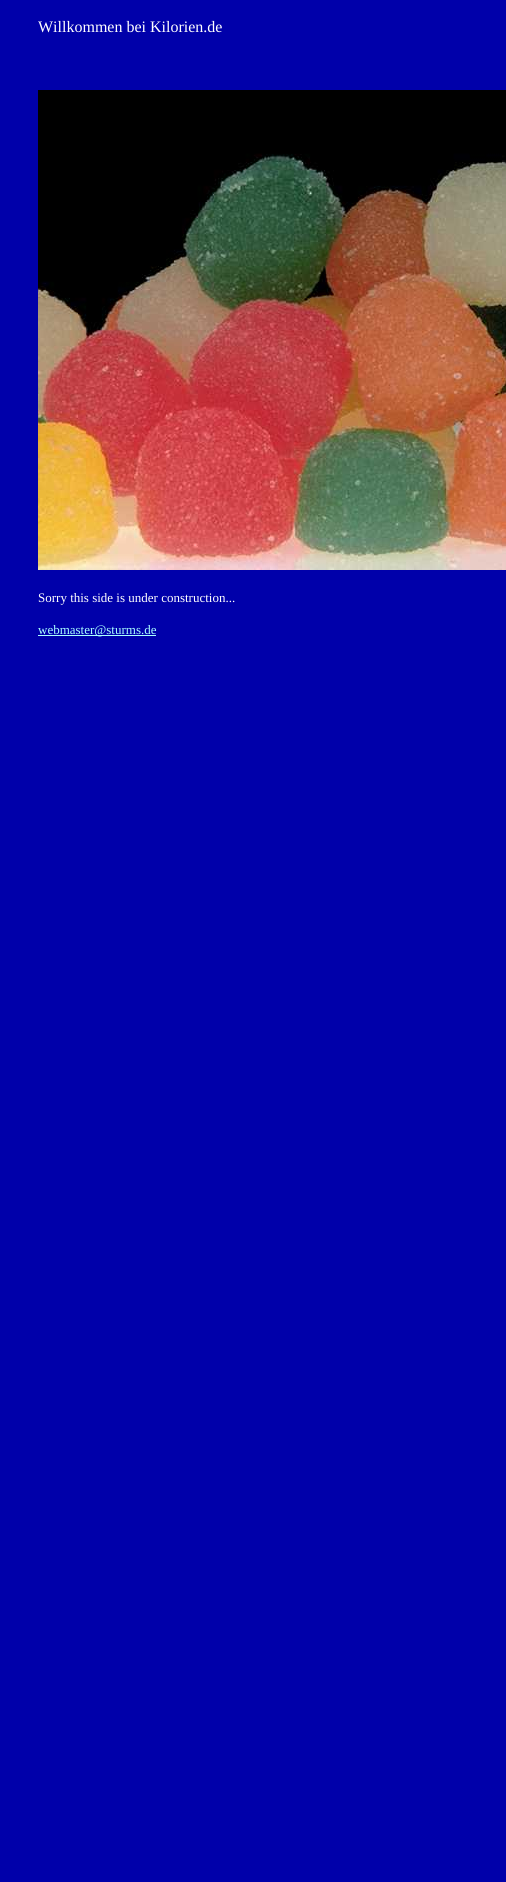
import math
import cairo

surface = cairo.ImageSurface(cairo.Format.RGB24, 506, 1882)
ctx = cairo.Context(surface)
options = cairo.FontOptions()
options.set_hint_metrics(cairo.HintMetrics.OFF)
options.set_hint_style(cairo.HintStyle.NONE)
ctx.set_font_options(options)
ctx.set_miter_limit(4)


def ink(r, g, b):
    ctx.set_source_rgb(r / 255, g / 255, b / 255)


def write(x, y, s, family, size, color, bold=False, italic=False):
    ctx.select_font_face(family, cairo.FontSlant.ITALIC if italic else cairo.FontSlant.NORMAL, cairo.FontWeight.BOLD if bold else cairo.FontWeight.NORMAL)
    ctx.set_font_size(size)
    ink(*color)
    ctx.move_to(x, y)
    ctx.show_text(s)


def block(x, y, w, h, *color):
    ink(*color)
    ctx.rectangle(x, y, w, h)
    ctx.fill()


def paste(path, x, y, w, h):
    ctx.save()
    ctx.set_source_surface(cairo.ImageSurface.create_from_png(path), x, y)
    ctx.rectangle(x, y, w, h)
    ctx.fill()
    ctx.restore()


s1 = dict(family="Liberation Serif", size=16, color=(255, 255, 255))
s2 = dict(family="Liberation Serif", size=13, color=(255, 255, 255))
s3 = dict(family="Liberation Serif", size=13, color=(170, 255, 255))

ink(0, 0, 170)
ctx.paint()
write(38, 32, "Willkommen bei Kilorien.de", **s1)
paste("pic1.png", 38, 90, 468, 480)
write(38, 602, "Sorry this side is under construction...", **s2)
block(38, 635, 118, 1, 170, 255, 255)
write(38, 634, "webmaster@sturms.de", **s3)
surface.write_to_png("screenshot.png")
